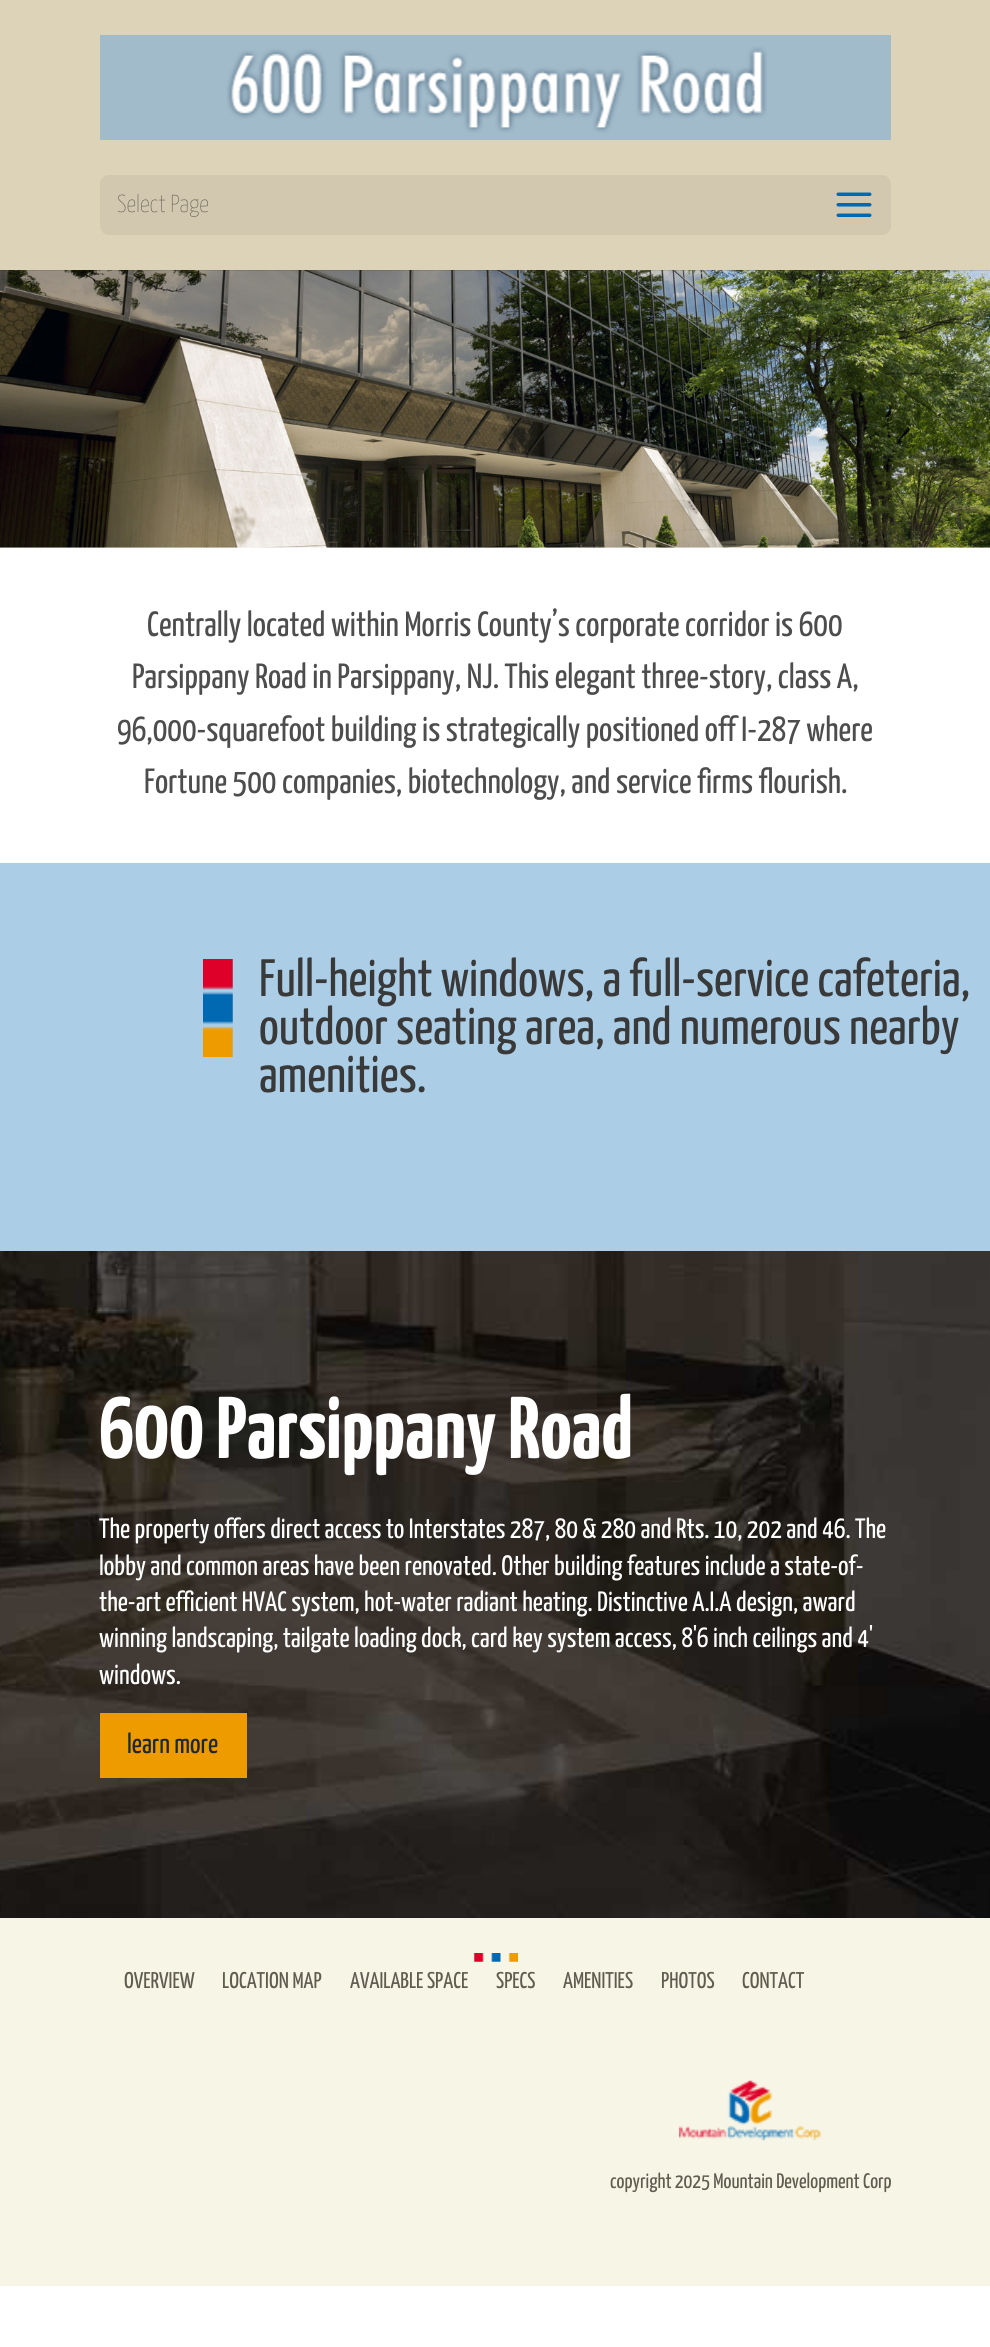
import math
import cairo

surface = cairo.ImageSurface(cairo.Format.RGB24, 990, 2347)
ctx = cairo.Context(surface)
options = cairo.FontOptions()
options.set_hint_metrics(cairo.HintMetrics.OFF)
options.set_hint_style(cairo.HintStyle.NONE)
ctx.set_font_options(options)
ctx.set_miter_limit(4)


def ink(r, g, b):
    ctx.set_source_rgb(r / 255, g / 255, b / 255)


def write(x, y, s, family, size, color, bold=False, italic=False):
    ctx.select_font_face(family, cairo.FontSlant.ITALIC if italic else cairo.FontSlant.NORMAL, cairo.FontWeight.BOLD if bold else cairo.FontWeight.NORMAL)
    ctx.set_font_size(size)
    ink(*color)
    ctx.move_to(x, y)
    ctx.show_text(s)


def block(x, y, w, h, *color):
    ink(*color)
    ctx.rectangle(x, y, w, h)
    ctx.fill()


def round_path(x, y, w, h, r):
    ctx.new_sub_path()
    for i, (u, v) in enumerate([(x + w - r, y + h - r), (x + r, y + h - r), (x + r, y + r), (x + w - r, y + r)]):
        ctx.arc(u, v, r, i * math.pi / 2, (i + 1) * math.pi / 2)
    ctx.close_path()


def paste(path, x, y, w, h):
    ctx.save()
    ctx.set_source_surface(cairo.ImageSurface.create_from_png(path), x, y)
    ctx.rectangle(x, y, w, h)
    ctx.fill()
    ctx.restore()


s1 = dict(family="Yanone Kaffeesatz ExtraLight", size=24.5, color=(96, 92, 80))
s2 = dict(family="Yanone Kaffeesatz", size=35, color=(77, 77, 77))
s3 = dict(family="Yanone Kaffeesatz", size=52.5, color=(57, 57, 57))
s4 = dict(family="Yanone Kaffeesatz", size=87.5, color=(255, 255, 255), bold=True)
s5 = dict(family="Yanone Kaffeesatz", size=28, color=(255, 255, 255))
s6 = dict(family="Yanone Kaffeesatz", size=28, color=(29, 39, 46))
s7 = dict(family="Yanone Kaffeesatz", size=22.75, color=(96, 92, 80))
s8 = dict(family="Yanone Kaffeesatz", size=21, color=(96, 92, 80))

ink(255, 255, 255)
ctx.paint()
paste("pic3.png", 0, 270, 990, 278)
ctx.set_source_rgba(0, 0, 0, 0.1)
ctx.new_path()
ctx.move_to(0, 270)
ctx.line_to(0, 271)
ctx.line_to(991, 271)
ctx.line_to(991, 2)
ctx.line_to(990, 2)
ctx.line_to(990, 270)
ctx.close_path()
ctx.fill()
block(0, 0, 990, 270, 221, 211, 185)
block(100, 35, 791, 105, 162, 187, 203)
paste("pic1.png", 226, 46, 541, 87)
ink(210, 200, 176)
round_path(100, 175, 791, 60, 9)
ctx.fill()
write(117, 212, "Select Page", **s1)
paste("pic2.png", 836, 192, 36, 25)
write(147, 636, "Centrally located within Morris County’s corporate corridor is 600", **s2)
write(132, 688, "Parsippany Road in Parsippany, NJ. This elegant three-story, class A,", **s2)
write(117, 741, "96,000-squarefoot building is strategically positioned off I-287 where", **s2)
write(144, 793, "Fortune 500 companies, biotechnology, and service firms flourish.", **s2)
block(0, 863, 990, 388, 171, 205, 230)
paste("pic4.png", 203, 959, 30, 98)
write(259, 996, "Full-height windows, a full-service cafeteria,", **s3)
write(259, 1044, "outdoor seating area, and numerous nearby", **s3)
write(259, 1092, "amenities.", **s3)
paste("pic5.png", 0, 1251, 990, 667)
write(99, 1458, "600 Parsippany Road", **s4)
write(99, 1538, "The property offers direct access to Interstates 287, 80 & 280 and Rts. 10, 202 and 46. The", **s5)
write(99, 1575, "lobby and common areas have been renovated. Other building features include a state-of-", **s5)
write(99, 1611, "the-art efficient HVAC system, hot-water radiant heating. Distinctive A.I.A design, award", **s5)
write(99, 1647, "winning landscaping, tailgate loading dock, card key system access, 8'6 inch ceilings and 4'", **s5)
write(99, 1684, "windows.", **s5)
block(100, 1713, 147, 65, 238, 155, 0)
write(127, 1753, "learn more", **s6)
block(0, 1918, 990, 368, 246, 245, 230)
paste("pic6.png", 474, 1953, 44, 9)
write(124, 1988, "OVERVIEW", **s7)
write(222, 1988, "LOCATION MAP", **s7)
write(350, 1988, "AVAILABLE SPACE", **s7)
write(496, 1988, "SPECS", **s7)
write(563, 1988, "AMENITIES", **s7)
write(661, 1988, "PHOTOS", **s7)
write(742, 1988, "CONTACT", **s7)
paste("pic7.png", 679, 2080, 142, 61)
write(610, 2188, "copyright 2025 Mountain Development Corp", **s8)
surface.write_to_png("screenshot.png")
